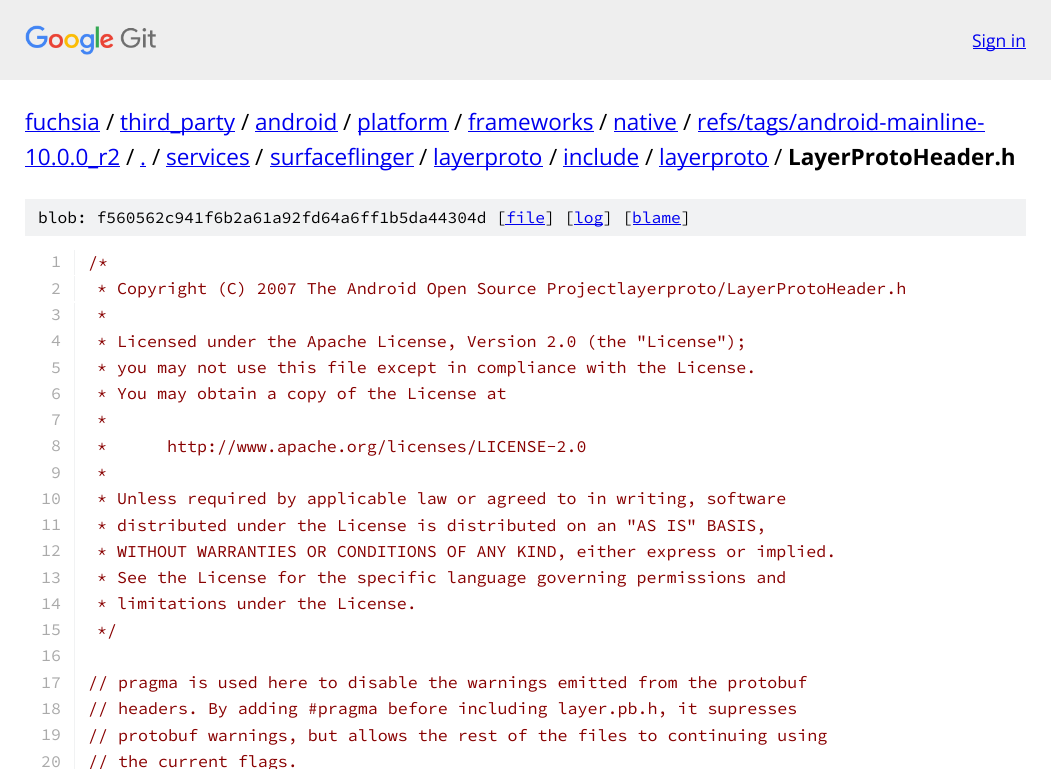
import math
import cairo

surface = cairo.ImageSurface(cairo.Format.RGB24, 1051, 769)
ctx = cairo.Context(surface)
options = cairo.FontOptions()
options.set_hint_metrics(cairo.HintMetrics.OFF)
options.set_hint_style(cairo.HintStyle.NONE)
ctx.set_font_options(options)
ctx.set_miter_limit(4)


def ink(r, g, b):
    ctx.set_source_rgb(r / 255, g / 255, b / 255)


def write(x, y, s, family, size, color, bold=False, italic=False):
    ctx.select_font_face(family, cairo.FontSlant.ITALIC if italic else cairo.FontSlant.NORMAL, cairo.FontWeight.BOLD if bold else cairo.FontWeight.NORMAL)
    ctx.set_font_size(size)
    ink(*color)
    ctx.move_to(x, y)
    ctx.show_text(s)


def block(x, y, w, h, *color):
    ink(*color)
    ctx.rectangle(x, y, w, h)
    ctx.fill()


def paste(path, x, y, w, h):
    ctx.save()
    ctx.set_source_surface(cairo.ImageSurface.create_from_png(path), x, y)
    ctx.rectangle(x, y, w, h)
    ctx.fill()
    ctx.restore()


s1 = dict(family="Open Sans", size=17.5, color=(0, 0, 238))
s2 = dict(family="Open Sans", size=22.5, color=(0, 0, 238))
s3 = dict(family="Open Sans", size=22.5, color=(0, 0, 0))
s4 = dict(family="Open Sans", size=22.5, color=(0, 0, 0), bold=True)
s5 = dict(family="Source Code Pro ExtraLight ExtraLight", size=16.25, color=(0, 0, 0))
s6 = dict(family="Source Code Pro ExtraLight ExtraLight", size=16.25, color=(0, 0, 238))
s7 = dict(family="Source Code Pro ExtraLight ExtraLight", size=16.65, color=(170, 170, 170))
s8 = dict(family="Source Code Pro ExtraLight ExtraLight", size=16.65, color=(136, 0, 0))

ink(255, 255, 255)
ctx.paint()
block(0, 0, 1051, 80, 238, 238, 238)
paste("pic1.png", 25, 25, 131, 30)
block(973, 48, 53, 1, 0, 0, 238)
write(972, 47, "Sign in", **s1)
write(25, 130, "fuchsia", **s2)
block(25, 131, 75, 1, 0, 0, 238)
write(106, 130, "/", **s3)
block(120, 131, 115, 1, 0, 0, 238)
write(120, 130, "third_party", **s2)
write(241, 130, "/", **s3)
write(255, 130, "android", **s2)
block(255, 131, 83, 1, 0, 0, 238)
write(343, 130, "/", **s3)
block(358, 131, 91, 1, 0, 0, 238)
write(357, 130, "platform", **s2)
write(454, 130, "/", **s3)
write(468, 130, "frameworks", **s2)
block(468, 131, 126, 1, 0, 0, 238)
write(599, 130, "/", **s3)
write(613, 130, "native", **s2)
block(614, 131, 64, 1, 0, 0, 238)
write(683, 130, "/", **s3)
block(698, 131, 287, 1, 0, 0, 238)
write(697, 130, "refs/tags/android-mainline-", **s2)
block(25, 166, 95, 1, 0, 0, 238)
write(25, 165, "10.0.0_r2", **s2)
write(126, 165, "/", **s3)
write(140, 165, ".", **s2)
block(140, 166, 6, 1, 0, 0, 238)
write(152, 165, "/", **s3)
write(166, 165, "services", **s2)
block(166, 166, 84, 1, 0, 0, 238)
write(255, 165, "/", **s3)
block(270, 166, 144, 1, 0, 0, 238)
write(270, 165, "surfaceflinger", **s2)
write(419, 165, "/", **s3)
block(434, 166, 109, 1, 0, 0, 238)
write(433, 165, "layerproto", **s2)
write(549, 165, "/", **s3)
write(563, 165, "include", **s2)
block(563, 166, 76, 1, 0, 0, 238)
write(645, 165, "/", **s3)
block(659, 166, 110, 1, 0, 0, 238)
write(659, 165, "layerproto", **s2)
write(774, 165, "/", **s3)
write(788, 165, "LayerProtoHeader.h", **s4)
block(25, 199, 1001, 37, 241, 242, 243)
write(38, 223, "blob: f560562c941f6b2a61a92fd64a6ff1b5da44304d [", **s5)
write(506, 223, "file", **s6)
block(505, 224, 40, 1, 0, 0, 238)
write(545, 223, "] [", **s5)
block(574, 224, 29, 1, 0, 0, 238)
write(574, 223, "log", **s6)
write(603, 223, "] [", **s5)
write(632, 223, "blame", **s6)
block(633, 224, 48, 1, 0, 0, 238)
write(681, 223, "]", **s5)
block(74, 250, 1, 25, 241, 242, 243)
write(51, 267, "1", **s7)
write(88, 268, "/*", **s8)
block(74, 276, 1, 25, 241, 242, 243)
write(51, 294, "2", **s7)
write(97, 294, "* Copyright (C) 2007 The Android Open Source Projectlayerproto/LayerProtoHeader.h", **s8)
block(74, 303, 1, 466, 241, 242, 243)
write(51, 320, "3", **s7)
write(97, 320, "*", **s8)
write(51, 346, "4", **s7)
write(97, 347, "* Licensed under the Apache License, Version 2.0 (the \"License\");", **s8)
write(51, 373, "5", **s7)
write(97, 373, "* you may not use this file except in compliance with the License.", **s8)
write(51, 399, "6", **s7)
write(97, 399, "* You may obtain a copy of the License at", **s8)
write(51, 425, "7", **s7)
write(97, 425, "*", **s8)
write(51, 451, "8", **s7)
write(97, 452, "*      http://www.apache.org/licenses/LICENSE-2.0", **s8)
write(51, 478, "9", **s7)
write(97, 478, "*", **s8)
write(41, 504, "10", **s7)
write(97, 504, "* Unless required by applicable law or agreed to in writing, software", **s8)
write(41, 530, "11", **s7)
write(97, 531, "* distributed under the License is distributed on an \"AS IS\" BASIS,", **s8)
write(41, 556, "12", **s7)
write(97, 557, "* WITHOUT WARRANTIES OR CONDITIONS OF ANY KIND, either express or implied.", **s8)
write(41, 583, "13", **s7)
write(97, 583, "* See the License for the specific language governing permissions and", **s8)
write(41, 609, "14", **s7)
write(97, 609, "* limitations under the License.", **s8)
write(41, 635, "15", **s7)
write(97, 636, "*/", **s8)
write(41, 661, "16", **s7)
write(41, 688, "17", **s7)
write(88, 688, "// pragma is used here to disable the warnings emitted from the protobuf", **s8)
write(41, 714, "18", **s7)
write(88, 714, "// headers. By adding #pragma before including layer.pb.h, it supresses", **s8)
write(41, 740, "19", **s7)
write(88, 741, "// protobuf warnings, but allows the rest of the files to continuing using", **s8)
write(41, 767, "20", **s7)
write(88, 767, "// the current flags.", **s8)
surface.write_to_png("screenshot.png")
